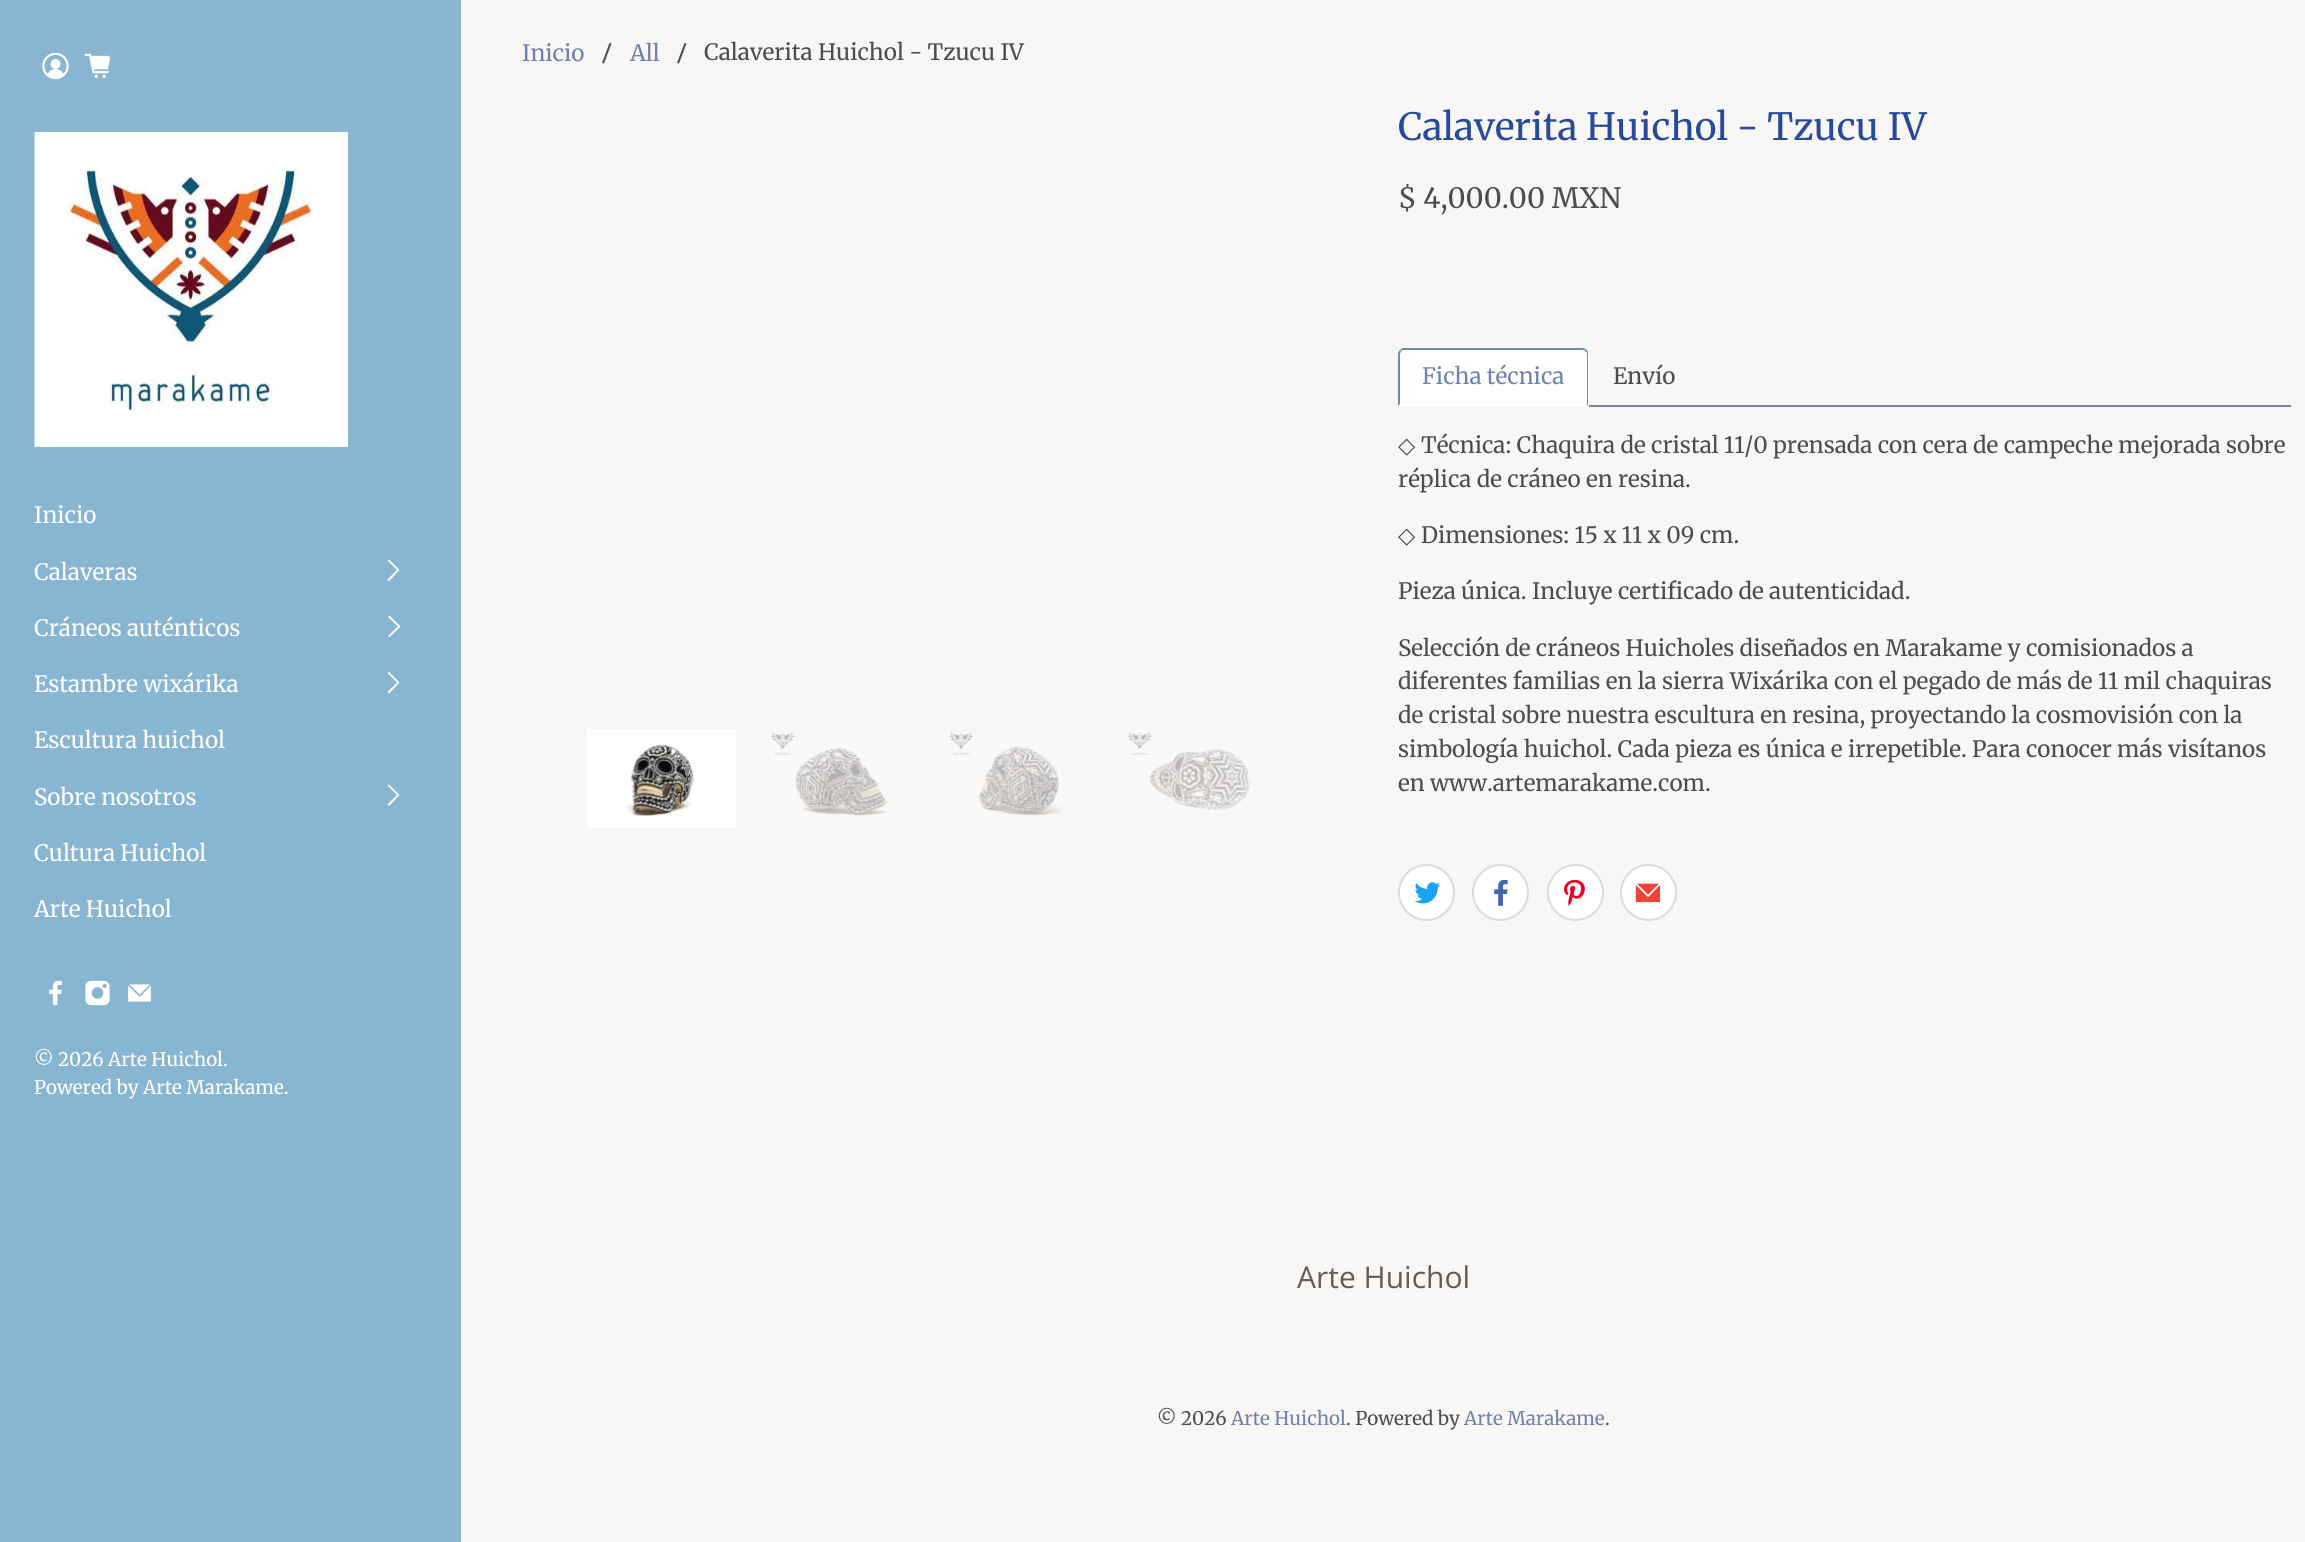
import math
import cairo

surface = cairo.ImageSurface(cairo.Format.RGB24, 2305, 1542)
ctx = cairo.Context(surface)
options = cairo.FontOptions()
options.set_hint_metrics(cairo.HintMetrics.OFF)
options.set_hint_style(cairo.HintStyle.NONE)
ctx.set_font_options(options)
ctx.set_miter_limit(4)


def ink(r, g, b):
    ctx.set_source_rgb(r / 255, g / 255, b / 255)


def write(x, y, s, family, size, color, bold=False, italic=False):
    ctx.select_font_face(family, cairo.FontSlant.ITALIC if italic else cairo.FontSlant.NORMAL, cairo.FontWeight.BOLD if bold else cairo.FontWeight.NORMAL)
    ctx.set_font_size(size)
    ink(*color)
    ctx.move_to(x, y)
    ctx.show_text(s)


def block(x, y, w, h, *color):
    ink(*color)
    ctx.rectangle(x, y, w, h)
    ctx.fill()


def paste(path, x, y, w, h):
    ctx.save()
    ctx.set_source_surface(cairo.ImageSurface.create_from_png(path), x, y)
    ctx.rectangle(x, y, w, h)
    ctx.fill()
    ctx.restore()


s1 = dict(family="Merriweather", size=22.5, color=(255, 255, 255))
s2 = dict(family="Merriweather", size=18.75, color=(255, 255, 255))
s3 = dict(family="Merriweather", size=22.5, color=(112, 130, 174))
s4 = dict(family="Merriweather", size=22.5, color=(78, 77, 77))
s5 = dict(family="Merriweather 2", size=37.5, color=(39, 75, 154))
s6 = dict(family="Merriweather", size=28, color=(78, 77, 77))
s7 = dict(family="DejaVu Sans", size=22.5, color=(78, 77, 77))
s8 = dict(family="Open Sans", size=30, color=(102, 91, 85))
s9 = dict(family="Merriweather", size=18.75, color=(78, 77, 77))
s10 = dict(family="Merriweather", size=18.75, color=(112, 130, 174))

ink(249, 247, 245)
ctx.paint()
block(0, 0, 461, 1542, 136, 182, 210)
paste("pic1.png", 42, 53, 27, 27)
paste("pic2.png", 84, 53, 27, 26)
paste("pic3.png", 34, 132, 314, 315)
write(34, 523, "Inicio", **s1)
write(34, 580, "Calaveras", **s1)
ctx.new_path()
ctx.move_to(399.5, 570)
ctx.line_to(389, 581)
ctx.line_to(387.5, 579.5)
ctx.line_to(397, 570)
ctx.line_to(387.5, 560.5)
ctx.line_to(389, 559.5)
ctx.close_path()
ctx.fill()
write(34, 636, "Cráneos auténticos", **s1)
ctx.new_path()
ctx.move_to(400.5, 626.5)
ctx.line_to(389.5, 637)
ctx.line_to(388, 636)
ctx.line_to(398, 626.5)
ctx.line_to(388, 617)
ctx.line_to(389.5, 615.5)
ctx.close_path()
ctx.fill()
write(34, 692, "Estambre wixárika", **s1)
ctx.new_path()
ctx.move_to(399.5, 682.5)
ctx.line_to(389, 693.5)
ctx.line_to(387.5, 692)
ctx.line_to(397, 682.5)
ctx.line_to(387.5, 673)
ctx.line_to(389, 672)
ctx.close_path()
ctx.fill()
write(34, 748, "Escultura huichol", **s1)
write(34, 805, "Sobre nosotros", **s1)
ctx.new_path()
ctx.move_to(399.5, 795)
ctx.line_to(389, 806)
ctx.line_to(387.5, 804.5)
ctx.line_to(397, 795)
ctx.line_to(387.5, 785.5)
ctx.line_to(389, 784.5)
ctx.close_path()
ctx.fill()
write(34, 861, "Cultura Huichol", **s1)
write(34, 917, "Arte Huichol", **s1)
paste("pic4.png", 49, 980, 13, 26)
paste("pic5.png", 85, 980, 25, 26)
paste("pic6.png", 128, 984, 23, 18)
write(34, 1066, "© 2026 Arte Huichol.", **s2)
write(34, 1094, "Powered by Arte Marakame.", **s2)
write(522, 61, "Inicio", **s3)
ink(78, 77, 77)
ctx.new_path()
ctx.move_to(602, 63)
ctx.line_to(609.5, 43)
ctx.line_to(611.5, 43.5)
ctx.line_to(604, 63.5)
ctx.close_path()
ctx.fill()
write(630, 61, "All", **s3)
ink(78, 77, 77)
ctx.new_path()
ctx.move_to(677, 63)
ctx.line_to(684.5, 43)
ctx.line_to(686.5, 43.5)
ctx.line_to(679, 63.5)
ctx.close_path()
ctx.fill()
write(704, 60, "Calaverita Huichol - Tzucu IV", **s4)
paste("pic7.png", 587, 729, 149, 99)
paste("pic8.png", 770, 732, 117, 84)
paste("pic9.png", 949, 732, 113, 84)
paste("pic10.png", 1127, 732, 124, 78)
write(1398, 140, "Calaverita Huichol - Tzucu IV", **s5)
write(1398, 208, "$ 4,000.00 MXN", **s6)
block(1589, 405, 702, 2, 112, 139, 174)
ink(255, 255, 255)
ctx.new_path()
ctx.move_to(1404, 348)
ctx.line_to(1583, 348)
ctx.curve_to(1586.5, 348, 1589, 350.5, 1589, 354)
ctx.line_to(1589, 407)
ctx.line_to(1398, 407)
ctx.line_to(1398, 354)
ctx.curve_to(1398, 350.5, 1400.5, 348, 1404, 348)
ctx.close_path()
ctx.fill()
ink(112, 139, 174)
ctx.new_path()
ctx.move_to(1404, 348)
ctx.curve_to(1402, 348, 1401, 349, 1400, 350)
ctx.line_to(1401, 351)
ctx.curve_to(1402, 350, 1403, 350, 1404, 350)
ctx.line_to(1582, 350)
ctx.curve_to(1583, 350, 1585, 350, 1585, 351)
ctx.line_to(1587, 350)
ctx.curve_to(1586, 349, 1584, 348, 1582, 348)
ctx.close_path()
ctx.fill()
ctx.new_path()
ctx.move_to(1587, 350)
ctx.curve_to(1588, 351, 1588, 353, 1588, 354)
ctx.line_to(1588, 406)
ctx.line_to(1587, 405)
ctx.line_to(1587, 353)
ctx.line_to(1585, 351)
ctx.close_path()
ctx.fill()
ctx.new_path()
ctx.move_to(1398, 354)
ctx.line_to(1398, 406)
ctx.line_to(1400, 404)
ctx.line_to(1400, 354)
ctx.line_to(1401, 351)
ctx.line_to(1400, 350)
ctx.curve_to(1399, 351, 1398, 352, 1398, 354)
ctx.close_path()
ctx.fill()
write(1422, 384, "Ficha técnica", **s3)
write(1613, 384, "Envío", **s4)
write(1398, 453, "◇", **s7)
write(1421, 453, "Técnica: Chaquira de cristal 11/0 prensada con cera de campeche mejorada sobre", **s4)
write(1398, 487, "réplica de cráneo en resina.", **s4)
write(1398, 543, "◇", **s7)
write(1421, 543, "Dimensiones: 15 x 11 x 09 cm.", **s4)
write(1398, 599, "Pieza única. Incluye certificado de autenticidad.", **s4)
write(1398, 656, "Selección de cráneos Huicholes diseñados en Marakame y comisionados a", **s4)
write(1398, 689, "diferentes familias en la sierra Wixárika con el pegado de más de 11 mil chaquiras", **s4)
write(1398, 723, "de cristal sobre nuestra escultura en resina, proyectando la cosmovisión con la", **s4)
write(1398, 757, "simbología huichol. Cada pieza es única e irrepetible. Para conocer más visítanos", **s4)
write(1398, 791, "en www.artemarakame.com.", **s4)
ink(255, 255, 255)
ctx.new_path()
ctx.arc(1426.5, 892.5, 27.5, 0, 2 * math.pi)
ctx.fill_preserve()
ink(219, 219, 219)
ctx.stroke()
paste("pic11.png", 1414, 882, 27, 22)
ink(255, 255, 255)
ctx.arc(1500.5, 892.5, 27.5, 0, 2 * math.pi)
ctx.fill_preserve()
ink(219, 219, 219)
ctx.stroke()
paste("pic12.png", 1494, 879, 14, 27)
ink(255, 255, 255)
ctx.arc(1575.5, 892.5, 27.5, 0, 2 * math.pi)
ctx.fill_preserve()
ink(219, 219, 219)
ctx.stroke()
paste("pic13.png", 1564, 879, 21, 27)
ink(255, 255, 255)
ctx.arc(1648.5, 892.5, 27.5, 0, 2 * math.pi)
ctx.fill_preserve()
ink(219, 219, 219)
ctx.stroke()
paste("pic14.png", 1635, 883, 26, 20)
write(1297, 1288, "Arte Huichol", **s8)
write(1157, 1425, "© 2026", **s9)
write(1231, 1425, "Arte Huichol", **s10)
write(1346, 1425, ". Powered by", **s9)
write(1464, 1425, "Arte Marakame", **s10)
write(1605, 1425, ".", **s9)
surface.write_to_png("screenshot.png")
